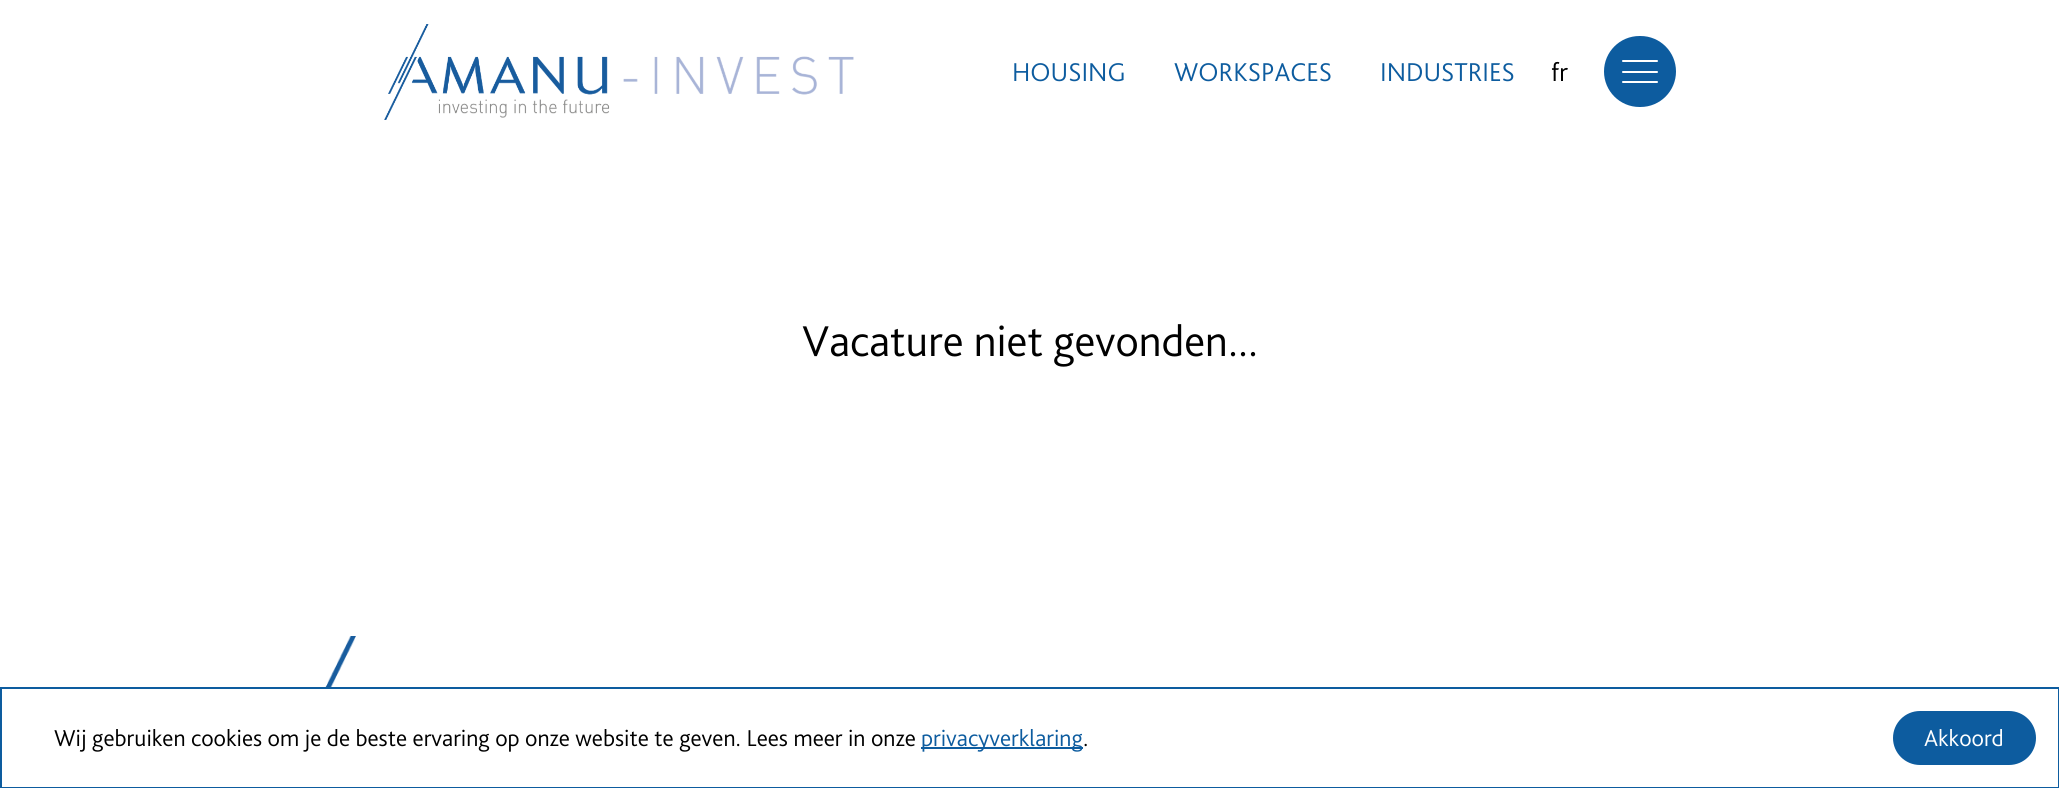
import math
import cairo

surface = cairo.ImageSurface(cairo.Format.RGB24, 2059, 788)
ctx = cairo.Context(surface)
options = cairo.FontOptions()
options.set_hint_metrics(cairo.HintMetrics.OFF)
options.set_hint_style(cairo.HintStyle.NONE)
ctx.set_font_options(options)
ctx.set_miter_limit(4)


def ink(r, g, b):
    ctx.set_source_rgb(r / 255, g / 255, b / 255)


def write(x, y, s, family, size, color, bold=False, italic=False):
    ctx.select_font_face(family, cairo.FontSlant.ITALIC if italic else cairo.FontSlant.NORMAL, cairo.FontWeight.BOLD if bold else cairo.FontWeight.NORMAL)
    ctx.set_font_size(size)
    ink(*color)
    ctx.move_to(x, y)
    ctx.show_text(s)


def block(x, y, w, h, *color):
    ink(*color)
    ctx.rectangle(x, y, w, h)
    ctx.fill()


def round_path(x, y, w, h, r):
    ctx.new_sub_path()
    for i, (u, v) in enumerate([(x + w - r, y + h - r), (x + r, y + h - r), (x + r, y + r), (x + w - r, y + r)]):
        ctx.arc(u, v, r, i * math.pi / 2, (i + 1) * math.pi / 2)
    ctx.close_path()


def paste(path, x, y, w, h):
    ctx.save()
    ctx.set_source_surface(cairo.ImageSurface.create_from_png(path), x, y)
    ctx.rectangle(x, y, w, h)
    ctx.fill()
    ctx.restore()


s1 = dict(family="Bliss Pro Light", size=27, color=(13, 92, 159))
s2 = dict(family="Bliss Pro Light", size=27, color=(0, 0, 0))
s3 = dict(family="Bliss Pro Light", size=45, color=(0, 0, 0))
s4 = dict(family="Bliss Pro Light", size=24, color=(0, 0, 0))
s5 = dict(family="Bliss Pro Light", size=24, color=(13, 92, 159))
s6 = dict(family="Bliss Pro Light", size=24, color=(255, 255, 255))

ink(255, 255, 255)
ctx.paint()
paste("pic1.png", 384, 24, 470, 96)
write(1012, 81, "HOUSING", **s1)
write(1174, 81, "WORKSPACES", **s1)
write(1380, 81, "INDUSTRIES", **s1)
write(1551, 81, "fr", **s2)
ink(13, 92, 159)
round_path(1604, 36, 72, 71, 35.5)
ctx.fill()
ink(255, 255, 255)
round_path(1622, 60, 36, 2, 1)
ctx.fill()
round_path(1622, 71, 36, 2, 1)
ctx.fill()
round_path(1622, 81, 36, 2, 1)
ctx.fill()
write(802, 356, "Vacature niet gevonden...", **s3)
paste("pic2.png", 325, 636, 31, 51)
ctx.rectangle(1, 688, 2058, 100)
ink(13, 92, 159)
ctx.stroke()
write(54, 746, "Wij gebruiken cookies om je de beste ervaring op onze website te geven. Lees meer in onze", **s4)
block(921, 747, 162, 2, 13, 92, 159)
write(921, 746, "privacyverklaring", **s5)
write(1083, 746, ".", **s4)
ink(13, 92, 159)
round_path(1894, 712, 141, 52, 26)
ctx.fill_preserve()
ctx.stroke()
write(1924, 746, "Akkoord", **s6)
surface.write_to_png("screenshot.png")
